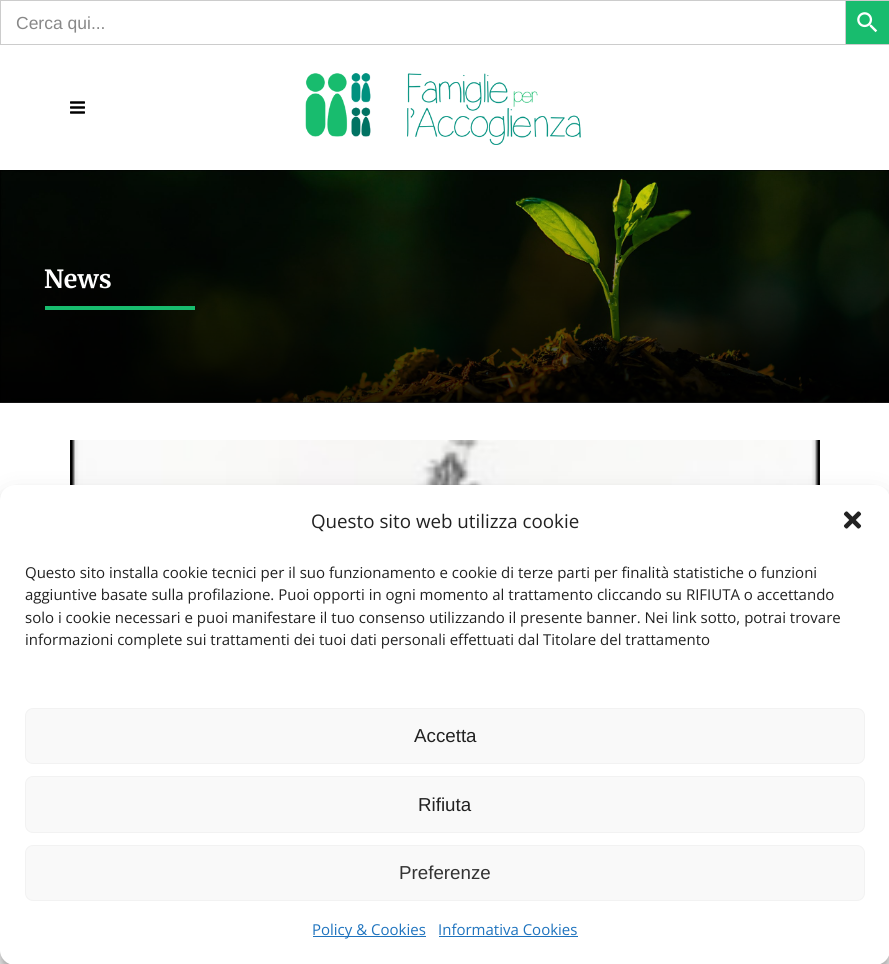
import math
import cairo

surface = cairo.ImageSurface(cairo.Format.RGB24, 889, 964)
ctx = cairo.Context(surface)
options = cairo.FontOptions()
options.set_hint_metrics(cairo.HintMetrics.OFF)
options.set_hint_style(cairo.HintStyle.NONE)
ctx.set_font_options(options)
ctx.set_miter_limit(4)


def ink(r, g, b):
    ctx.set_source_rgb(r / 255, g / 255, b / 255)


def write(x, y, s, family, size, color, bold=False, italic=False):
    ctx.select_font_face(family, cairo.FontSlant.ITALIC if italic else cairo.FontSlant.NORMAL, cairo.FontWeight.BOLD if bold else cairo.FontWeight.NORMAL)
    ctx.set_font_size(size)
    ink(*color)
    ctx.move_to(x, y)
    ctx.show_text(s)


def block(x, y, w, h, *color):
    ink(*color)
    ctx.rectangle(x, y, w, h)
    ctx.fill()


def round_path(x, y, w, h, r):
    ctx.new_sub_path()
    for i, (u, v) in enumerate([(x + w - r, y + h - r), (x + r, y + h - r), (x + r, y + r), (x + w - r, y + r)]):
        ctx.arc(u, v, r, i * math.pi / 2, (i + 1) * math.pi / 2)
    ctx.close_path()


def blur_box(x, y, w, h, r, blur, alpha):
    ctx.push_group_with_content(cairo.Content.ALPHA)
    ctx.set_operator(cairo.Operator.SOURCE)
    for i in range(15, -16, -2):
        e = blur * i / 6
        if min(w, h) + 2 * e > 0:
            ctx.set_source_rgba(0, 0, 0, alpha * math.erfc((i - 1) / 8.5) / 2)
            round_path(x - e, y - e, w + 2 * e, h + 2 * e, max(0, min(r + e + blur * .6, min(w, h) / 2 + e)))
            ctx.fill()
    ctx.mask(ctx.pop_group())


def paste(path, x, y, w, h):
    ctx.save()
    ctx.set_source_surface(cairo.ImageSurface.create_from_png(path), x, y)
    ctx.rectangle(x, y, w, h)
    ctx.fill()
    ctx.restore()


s1 = dict(family="Liberation Sans", size=17.5, color=(136, 136, 136))
s2 = dict(family="Merriweather", size=25, color=(255, 255, 255), bold=True)
s3 = dict(family="Open Sans", size=18.75, color=(34, 34, 34))
s4 = dict(family="Open Sans", size=15, color=(34, 34, 34))
s5 = dict(family="Liberation Sans", size=18.75, color=(34, 34, 34))
s6 = dict(family="Liberation Sans", size=18.75, color=(51, 51, 51))
s7 = dict(family="Open Sans", size=15, color=(30, 115, 190))

ink(255, 255, 255)
ctx.paint()
block(0, 0, 845, 1, 204, 204, 204)
block(0, 44, 845, 1, 204, 204, 204)
block(0, 0, 1, 45, 204, 204, 204)
write(16, 29, "Cerca qui...", **s1)
ink(24, 188, 110)
ctx.rectangle(845.5, 0.5, 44, 44)
ctx.fill_preserve()
ink(204, 204, 204)
ctx.set_line_width(1)
ctx.stroke()
paste("pic1.png", 857, 12, 21, 21)
paste("pic2.png", 70, 101, 15, 13)
paste("pic3.png", 305, 73, 276, 72)
paste("pic4.png", 0, 170, 889, 233)
gradient = cairo.LinearGradient(445, 127, 445, 403)
gradient.add_color_stop_rgba(0, 0, 0, 0, 0)
gradient.add_color_stop_rgba(1, 0, 0, 0, 0.85)
ctx.set_source(gradient)
ctx.rectangle(0, 170, 889, 233)
ctx.fill()
write(44, 288, "News", **s2)
block(45, 306, 150, 4, 24, 188, 110)
paste("pic5.png", 70, 440, 750, 45)
ink(0, 0, 0)
blur_box(0, 493, 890, 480, 15, 4, 0.23)
blur_box(0, 498, 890, 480, 15, 12.5, 0.19)
ink(255, 255, 255)
round_path(0, 485, 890, 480, 15)
ctx.fill()
write(311, 528, "Questo sito web utilizza cookie", **s3)
paste("pic6.png", 843, 511, 19, 18)
write(25, 578, "Questo sito installa cookie tecnici per il suo funzionamento e cookie di terze parti per finalità statistiche o funzioni", **s4)
write(25, 600, "aggiuntive basate sulla profilazione. Puoi opporti in ogni momento al trattamento cliccando su RIFIUTA o accettando", **s4)
write(25, 623, "solo i cookie necessari e puoi manifestare il tuo consenso utilizzando il presente banner. Nei link sotto, potrai trovare", **s4)
write(25, 645, "informazioni complete sui trattamenti dei tuoi dati personali effettuati dal Titolare del trattamento", **s4)
ink(249, 249, 249)
round_path(25.5, 708.5, 839, 55, 7.5)
ctx.fill_preserve()
ink(242, 242, 242)
ctx.stroke()
write(414, 742, "Accetta", **s5)
ink(249, 249, 249)
round_path(25.5, 776.5, 839, 56, 7.5)
ctx.fill_preserve()
ink(242, 242, 242)
ctx.stroke()
write(418, 811, "Rifiuta", **s5)
ink(249, 249, 249)
round_path(25.5, 845.5, 839, 55, 7.5)
ctx.fill_preserve()
ink(242, 242, 242)
ctx.stroke()
write(399, 879, "Preferenze", **s6)
block(313, 936, 113, 1, 30, 115, 190)
write(312, 935, "Policy & Cookies", **s7)
write(438, 935, "Informativa Cookies", **s7)
block(439, 936, 139, 1, 30, 115, 190)
surface.write_to_png("screenshot.png")
